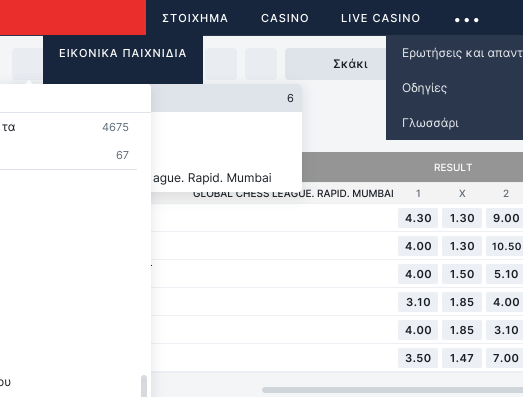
import math
import cairo

surface = cairo.ImageSurface(cairo.Format.RGB24, 523, 397)
ctx = cairo.Context(surface)
options = cairo.FontOptions()
options.set_hint_metrics(cairo.HintMetrics.OFF)
options.set_hint_style(cairo.HintStyle.NONE)
ctx.set_font_options(options)
ctx.set_miter_limit(4)


def ink(r, g, b):
    ctx.set_source_rgb(r / 255, g / 255, b / 255)


def write(x, y, s, family, size, color, bold=False, italic=False):
    ctx.select_font_face(family, cairo.FontSlant.ITALIC if italic else cairo.FontSlant.NORMAL, cairo.FontWeight.BOLD if bold else cairo.FontWeight.NORMAL)
    ctx.set_font_size(size)
    ink(*color)
    ctx.move_to(x, y)
    ctx.show_text(s)


def write_spaced(x, y, s, letter, word):
    ctx.move_to(x, y)
    for ch in s:
        ctx.show_text(ch)
        ctx.rel_move_to(letter + word * (ch == ' '), 0)


def block(x, y, w, h, *color):
    ink(*color)
    ctx.rectangle(x, y, w, h)
    ctx.fill()


def round_path(x, y, w, h, r):
    ctx.new_sub_path()
    for i, (u, v) in enumerate([(x + w - r, y + h - r), (x + r, y + h - r), (x + r, y + r), (x + w - r, y + r)]):
        ctx.arc(u, v, r, i * math.pi / 2, (i + 1) * math.pi / 2)
    ctx.close_path()


def blur_box(x, y, w, h, r, blur, alpha):
    ctx.push_group_with_content(cairo.Content.ALPHA)
    ctx.set_operator(cairo.Operator.SOURCE)
    for i in range(15, -16, -2):
        e = blur * i / 6
        if min(w, h) + 2 * e > 0:
            ctx.set_source_rgba(0, 0, 0, alpha * math.erfc((i - 1) / 8.5) / 2)
            round_path(x - e, y - e, w + 2 * e, h + 2 * e, max(0, min(r + e + blur * .6, min(w, h) / 2 + e)))
            ctx.fill()
    ctx.mask(ctx.pop_group())


s1 = dict(family="Inter Medium", size=12, color=(26, 30, 37))
s2 = dict(family="Inter Medium", size=10, color=(255, 255, 255))
s3 = dict(family="Inter Medium", size=10, color=(26, 30, 37))
s4 = dict(family="Inter Medium", size=10, color=(94, 106, 120))
s5 = dict(family="Inter", size=12, color=(229, 231, 234))
s6 = dict(family="Inter", size=12, color=(26, 30, 37))
s7 = dict(family="Inter", size=11, color=(94, 106, 120))
s8 = dict(family="Inter", size=11, color=(26, 30, 37))

ink(243, 245, 247)
ctx.paint()
block(146, 0, 377, 35, 23, 38, 61)
block(0, 35, 386, 1, 42, 55, 77)
block(0, 0, 146, 35, 233, 46, 44)
ctx.select_font_face("Inter Medium")
ctx.set_font_size(11)
ink(255, 255, 255)
write_spaced(162, 22, "ΣΤΟΙΧΗΜΑ", 1, 0)
write_spaced(261, 22, "CASINO", 1, 0)
write_spaced(341, 22, "LIVE CASINO", 1, 0)
ctx.set_font_size(30)
write_spaced(453, 22, "...", 1, 0)
ink(233, 237, 241)
round_path(12, 48, 32, 32, 4)
ctx.fill()
round_path(205, 48, 32, 32, 4)
ctx.fill()
round_path(245, 48, 32, 32, 4)
ctx.fill()
ink(223, 228, 234)
round_path(285, 48, 115, 32, 4)
ctx.fill()
write(333, 68, "Σκάκι", **s1)
block(302, 152, 221, 30, 140, 140, 140)
ctx.set_source_rgba(1, 1, 1, 0.08)
ctx.rectangle(302, 152, 221, 30)
ctx.fill()
write(434, 171, "RESULT", **s2)
block(151, 183, 372, 20, 243, 243, 243)
ctx.rectangle(12.5, 182.5, 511, 21)
ink(236, 239, 243)
ctx.set_line_width(1)
ctx.stroke()
write(193, 197, "GLOBAL CHESS LEAGUE. RAPID. MUMBAI", **s3)
write(416, 197, "1", **s4)
write(459, 197, "X", **s4)
write(503, 197, "2", **s4)
block(151, 204, 372, 27, 255, 255, 255)
ink(236, 239, 243)
round_path(398.5, 208.5, 39, 19, 1.5)
ctx.fill_preserve()
ctx.stroke()
ctx.select_font_face("Inter SemiBold")
ctx.set_font_size(11)
ink(26, 30, 37)
write_spaced(405, 222, "4.30", 0.5, 0)
ink(236, 239, 243)
round_path(442.5, 208.5, 39, 19, 1.5)
ctx.fill_preserve()
ctx.stroke()
ink(26, 30, 37)
write_spaced(450, 222, "1.30", 0.5, 0)
ink(236, 239, 243)
ctx.new_path()
ctx.move_to(488, 208)
ctx.line_to(523, 208)
ctx.line_to(523, 228)
ctx.line_to(488, 228)
ctx.curve_to(487, 228, 486, 227, 486, 226)
ctx.line_to(486, 210)
ctx.curve_to(486, 209, 487, 208, 488, 208)
ctx.close_path()
ctx.fill()
round_path(486.5, 208.5, 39, 19, 1.5)
ctx.stroke()
ink(26, 30, 37)
write_spaced(493, 222, "9.00", 0.5, 0)
block(151, 231, 372, 1, 236, 239, 243)
block(151, 232, 372, 27, 255, 255, 255)
ink(236, 239, 243)
round_path(398.5, 236.5, 39, 19, 1.5)
ctx.fill_preserve()
ctx.stroke()
ink(26, 30, 37)
write_spaced(405, 250, "4.00", 0.5, 0)
ink(236, 239, 243)
round_path(442.5, 236.5, 39, 19, 1.5)
ctx.fill_preserve()
ctx.stroke()
ink(26, 30, 37)
write_spaced(450, 250, "1.30", 0.5, 0)
ink(236, 239, 243)
ctx.new_path()
ctx.move_to(488, 236)
ctx.line_to(523, 236)
ctx.line_to(523, 256)
ctx.line_to(488, 256)
ctx.curve_to(487, 256, 486, 255, 486, 254)
ctx.line_to(486, 238)
ctx.curve_to(486, 237, 487, 236, 488, 236)
ctx.close_path()
ctx.fill()
round_path(486.5, 236.5, 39, 19, 1.5)
ctx.stroke()
ctx.set_font_size(10)
ink(26, 30, 37)
write_spaced(492, 250, "10.50", 0.5, 0)
block(151, 259, 372, 1, 236, 239, 243)
block(151, 260, 372, 27, 255, 255, 255)
block(151, 265, 1, 1, 26, 30, 37)
ink(236, 239, 243)
round_path(398.5, 264.5, 39, 19, 1.5)
ctx.fill_preserve()
ctx.stroke()
ctx.set_font_size(11)
ink(26, 30, 37)
write_spaced(405, 278, "4.00", 0.5, 0)
ink(236, 239, 243)
round_path(442.5, 264.5, 39, 19, 1.5)
ctx.fill_preserve()
ctx.stroke()
ink(26, 30, 37)
write_spaced(450, 278, "1.50", 0.5, 0)
ink(236, 239, 243)
ctx.new_path()
ctx.move_to(488, 264)
ctx.line_to(523, 264)
ctx.line_to(523, 284)
ctx.line_to(488, 284)
ctx.curve_to(487, 284, 486, 283, 486, 282)
ctx.line_to(486, 266)
ctx.curve_to(486, 265, 487, 264, 488, 264)
ctx.close_path()
ctx.fill()
round_path(486.5, 264.5, 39, 19, 1.5)
ctx.stroke()
ink(26, 30, 37)
write_spaced(494, 278, "5.10", 0.5, 0)
block(151, 287, 372, 1, 236, 239, 243)
block(151, 288, 372, 27, 255, 255, 255)
ink(236, 239, 243)
round_path(398.5, 292.5, 39, 19, 1.5)
ctx.fill_preserve()
ctx.stroke()
ink(26, 30, 37)
write_spaced(406, 306, "3.10", 0.5, 0)
ink(236, 239, 243)
round_path(442.5, 292.5, 39, 19, 1.5)
ctx.fill_preserve()
ctx.stroke()
ink(26, 30, 37)
write_spaced(450, 306, "1.85", 0.5, 0)
ink(236, 239, 243)
ctx.new_path()
ctx.move_to(488, 292)
ctx.line_to(523, 292)
ctx.line_to(523, 312)
ctx.line_to(488, 312)
ctx.curve_to(487, 312, 486, 311, 486, 310)
ctx.line_to(486, 294)
ctx.curve_to(486, 293, 487, 292, 488, 292)
ctx.close_path()
ctx.fill()
round_path(486.5, 292.5, 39, 19, 1.5)
ctx.stroke()
ink(26, 30, 37)
write_spaced(493, 306, "4.00", 0.5, 0)
block(151, 315, 372, 1, 236, 239, 243)
block(151, 316, 372, 27, 255, 255, 255)
ink(236, 239, 243)
round_path(398.5, 320.5, 39, 19, 1.5)
ctx.fill_preserve()
ctx.stroke()
ink(26, 30, 37)
write_spaced(405, 334, "4.00", 0.5, 0)
ink(236, 239, 243)
round_path(442.5, 320.5, 39, 19, 1.5)
ctx.fill_preserve()
ctx.stroke()
ink(26, 30, 37)
write_spaced(450, 334, "1.85", 0.5, 0)
ink(236, 239, 243)
ctx.new_path()
ctx.move_to(488, 320)
ctx.line_to(523, 320)
ctx.line_to(523, 340)
ctx.line_to(488, 340)
ctx.curve_to(487, 340, 486, 339, 486, 338)
ctx.line_to(486, 322)
ctx.curve_to(486, 321, 487, 320, 488, 320)
ctx.close_path()
ctx.fill()
round_path(486.5, 320.5, 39, 19, 1.5)
ctx.stroke()
ink(26, 30, 37)
write_spaced(494, 334, "3.10", 0.5, 0)
block(151, 343, 372, 1, 236, 239, 243)
block(151, 344, 372, 27, 255, 255, 255)
block(151, 372, 372, 1, 236, 239, 243)
ctx.set_fill_rule(cairo.FillRule.EVEN_ODD)
ctx.new_path()
ctx.move_to(12, 344)
ctx.line_to(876, 344)
ctx.line_to(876, 368)
ctx.curve_to(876, 370, 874, 372, 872, 372)
ctx.line_to(16, 372)
ctx.curve_to(14, 372, 12, 370, 12, 368)
ctx.close_path()
ctx.move_to(13, 344)
ctx.line_to(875, 344)
ctx.line_to(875, 368)
ctx.curve_to(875, 370, 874, 371, 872, 371)
ctx.line_to(16, 371)
ctx.curve_to(14, 371, 13, 370, 13, 368)
ctx.close_path()
ctx.fill()
round_path(398.5, 348.5, 39, 19, 1.5)
ctx.fill_preserve()
ctx.stroke()
ink(26, 30, 37)
write_spaced(405, 362, "3.50", 0.5, 0)
ink(236, 239, 243)
round_path(442.5, 348.5, 39, 19, 1.5)
ctx.fill_preserve()
ctx.stroke()
ink(26, 30, 37)
write_spaced(450, 362, "1.47", 0.5, 0)
ink(236, 239, 243)
ctx.new_path()
ctx.move_to(488, 348)
ctx.line_to(523, 348)
ctx.line_to(523, 368)
ctx.line_to(488, 368)
ctx.curve_to(487, 368, 486, 367, 486, 366)
ctx.line_to(486, 350)
ctx.curve_to(486, 349, 487, 348, 488, 348)
ctx.close_path()
ctx.fill()
round_path(486.5, 348.5, 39, 19, 1.5)
ctx.stroke()
ink(26, 30, 37)
write_spaced(493, 362, "7.00", 0.5, 0)
ink(208, 212, 219)
ctx.new_path()
ctx.move_to(265, 387)
ctx.line_to(523, 387)
ctx.line_to(523, 393)
ctx.line_to(265, 393)
ctx.curve_to(263.5, 393, 262, 391.5, 262, 390)
ctx.curve_to(262, 388.5, 263.5, 387, 265, 387)
ctx.close_path()
ctx.fill()
block(43, 35, 160, 49, 23, 38, 61)
ctx.select_font_face("Inter Medium")
ink(255, 255, 255)
write_spaced(59, 57, "ΕΙΚΟΝΙΚΑ ΠΑΙΧΝΙΔΙΑ", 1, 0)
block(386, 35, 137, 105, 42, 55, 77)
write(402, 57, "Ερωτήσεις και απαντ", **s5)
write(402, 92, "Οδηγίες", **s5)
write(402, 127, "Γλωσσάρι", **s5)
ink(16, 24, 40)
blur_box(14, 88, 288, 108, 4, 8, 0.12)
ink(255, 255, 255)
round_path(14, 84, 288, 108, 4)
ctx.fill()
ctx.set_fill_rule(cairo.FillRule.WINDING)
ctx.new_path()
ctx.move_to(29, 80)
ctx.line_to(35.5, 86.5)
ctx.line_to(29, 93)
ctx.line_to(23, 86.5)
ctx.close_path()
ctx.fill()
ctx.new_path()
ctx.move_to(29, 80)
ctx.line_to(30, 81)
ctx.line_to(23.5, 87)
ctx.line_to(23, 86.5)
ctx.close_path()
ctx.fill()
ink(223, 228, 234)
ctx.new_path()
ctx.move_to(18, 84)
ctx.line_to(298, 84)
ctx.curve_to(300, 84, 302, 86, 302, 88)
ctx.line_to(302, 112)
ctx.line_to(14, 112)
ctx.line_to(14, 88)
ctx.curve_to(14, 86, 16, 84, 18, 84)
ctx.close_path()
ctx.fill()
ink(255, 255, 255)
ctx.new_path()
ctx.move_to(14, 164)
ctx.line_to(302, 164)
ctx.line_to(302, 188)
ctx.curve_to(302, 190, 300, 192, 298, 192)
ctx.line_to(18, 192)
ctx.curve_to(16, 192, 14, 190, 14, 188)
ctx.close_path()
ctx.fill()
ink(16, 24, 40)
blur_box(-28, 88, 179, 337, 4, 8, 0.12)
ink(255, 255, 255)
round_path(-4, 84, 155, 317, 4)
ctx.fill()
block(0, 112, 151, 1, 223, 228, 234)
ink(255, 255, 255)
round_path(-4, 84, 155, 28, 4)
ctx.fill()
write(2, 131, "τα", **s6)
write(102, 131, "4675", **s7)
write(116, 159, "67", **s7)
block(0, 169, 137, 1, 223, 228, 234)
write(-3, 386, "ου", **s6)
ink(214, 218, 223)
round_path(141, 375, 6, 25, 3)
ctx.fill()
write(287, 102, "6", **s8)
write(153, 182, "ague. Rapid. Mumbai", **s6)
surface.write_to_png("screenshot.png")
